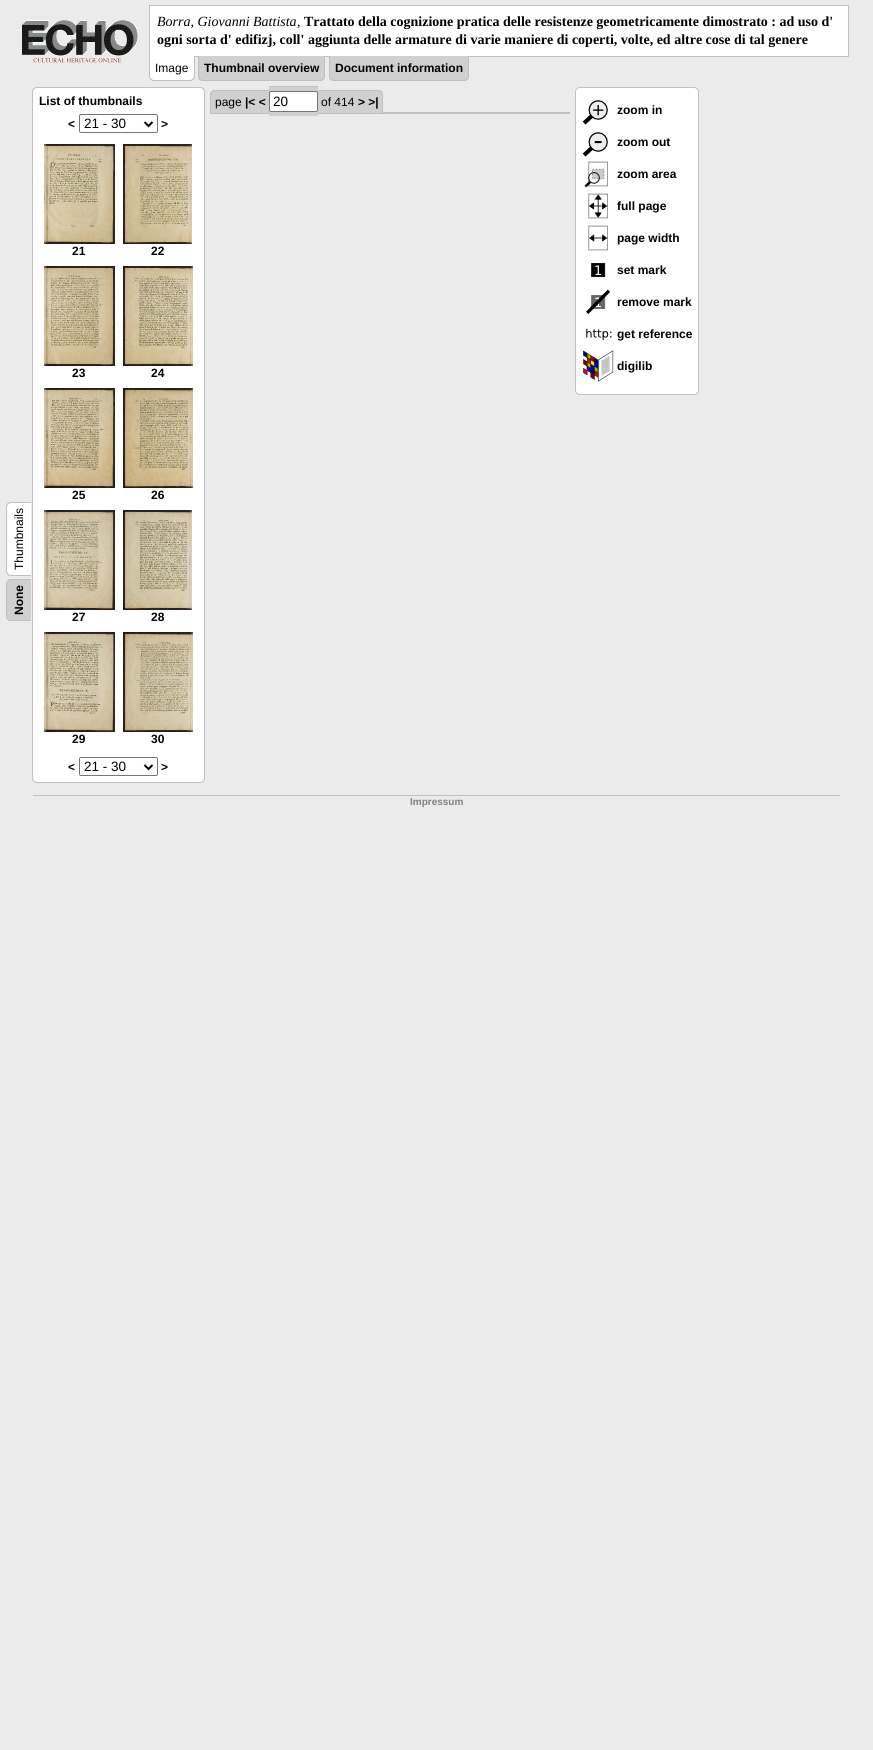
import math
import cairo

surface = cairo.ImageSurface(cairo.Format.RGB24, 873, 1750)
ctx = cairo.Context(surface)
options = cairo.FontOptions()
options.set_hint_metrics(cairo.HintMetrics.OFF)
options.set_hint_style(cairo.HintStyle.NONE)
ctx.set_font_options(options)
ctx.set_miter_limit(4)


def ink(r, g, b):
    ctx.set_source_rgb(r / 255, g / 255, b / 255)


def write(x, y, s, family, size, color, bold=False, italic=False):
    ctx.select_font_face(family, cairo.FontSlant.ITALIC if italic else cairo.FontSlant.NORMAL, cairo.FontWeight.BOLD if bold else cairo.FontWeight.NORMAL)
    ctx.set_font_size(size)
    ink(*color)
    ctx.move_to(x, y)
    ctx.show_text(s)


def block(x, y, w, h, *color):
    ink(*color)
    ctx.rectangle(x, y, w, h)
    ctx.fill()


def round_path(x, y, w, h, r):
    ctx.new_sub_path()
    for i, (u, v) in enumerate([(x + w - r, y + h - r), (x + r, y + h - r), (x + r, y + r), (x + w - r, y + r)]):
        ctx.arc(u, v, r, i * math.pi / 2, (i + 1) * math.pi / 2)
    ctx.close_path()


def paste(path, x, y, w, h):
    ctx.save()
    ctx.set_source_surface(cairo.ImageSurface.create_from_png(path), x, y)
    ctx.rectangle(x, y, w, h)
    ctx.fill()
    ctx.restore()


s1 = dict(family="Liberation Serif", size=14, color=(0, 0, 0), italic=True)
s2 = dict(family="Liberation Serif", size=14, color=(0, 0, 0))
s3 = dict(family="Liberation Serif", size=14, color=(0, 0, 0), bold=True)
s4 = dict(family="Liberation Sans", size=12, color=(0, 0, 0))
s5 = dict(family="Liberation Sans", size=12, color=(0, 0, 0), bold=True)
s6 = dict(family="Liberation Sans", size=13.5, color=(0, 0, 0))
s7 = dict(family="Liberation Sans", size=10, color=(128, 128, 128), bold=True)

ink(235, 235, 235)
ctx.paint()
paste("pic1.png", 22, 20, 116, 43)
ink(255, 255, 255)
ctx.rectangle(149.5, 5.5, 699, 51)
ctx.fill_preserve()
ink(192, 192, 192)
ctx.set_line_width(1)
ctx.stroke()
write(157, 26, "Borra, Giovanni Battista", **s1)
write(297, 26, ",", **s2)
write(304, 26, "Trattato della cognizione pratica delle resistenze geometricamente dimostrato : ad uso d'", **s3)
write(157, 44, "ogni sorta d' edifizj, coll' aggiunta delle armature di varie maniere di coperti, volte, ed altre cose di tal genere", **s3)
ink(255, 255, 255)
ctx.new_path()
ctx.move_to(149, 56)
ctx.line_to(195, 56)
ctx.line_to(195, 76)
ctx.curve_to(195, 79, 193, 81, 190, 81)
ctx.line_to(154, 81)
ctx.curve_to(151, 81, 149, 79, 149, 76)
ctx.close_path()
ctx.fill()
ink(192, 192, 192)
ctx.set_fill_rule(cairo.FillRule.EVEN_ODD)
ctx.new_path()
ctx.move_to(149, 56)
ctx.line_to(195, 56)
ctx.line_to(195, 76)
ctx.curve_to(195, 79, 193, 81, 190, 81)
ctx.line_to(154, 81)
ctx.curve_to(151, 81, 149, 79, 149, 76)
ctx.close_path()
ctx.move_to(150, 56)
ctx.line_to(194, 56)
ctx.line_to(194, 76)
ctx.curve_to(194, 78, 192, 80, 190, 80)
ctx.line_to(154, 80)
ctx.curve_to(152, 80, 150, 78, 150, 76)
ctx.close_path()
ctx.fill()
write(155, 72, "Image", **s4)
ink(208, 208, 208)
ctx.new_path()
ctx.move_to(198, 56)
ctx.line_to(325, 56)
ctx.line_to(325, 76)
ctx.curve_to(325, 79, 323, 81, 320, 81)
ctx.line_to(203, 81)
ctx.curve_to(200, 81, 198, 79, 198, 76)
ctx.close_path()
ctx.fill()
ink(192, 192, 192)
ctx.new_path()
ctx.move_to(198, 56)
ctx.line_to(325, 56)
ctx.line_to(325, 76)
ctx.curve_to(325, 79, 323, 81, 320, 81)
ctx.line_to(203, 81)
ctx.curve_to(200, 81, 198, 79, 198, 76)
ctx.close_path()
ctx.move_to(199, 56)
ctx.line_to(324, 56)
ctx.line_to(324, 76)
ctx.curve_to(324, 78, 322, 80, 320, 80)
ctx.line_to(203, 80)
ctx.curve_to(201, 80, 199, 78, 199, 76)
ctx.close_path()
ctx.fill()
write(204, 72, "Thumbnail overview", **s5)
ink(208, 208, 208)
ctx.new_path()
ctx.move_to(329, 56)
ctx.line_to(469, 56)
ctx.line_to(469, 76)
ctx.curve_to(469, 79, 467, 81, 464, 81)
ctx.line_to(334, 81)
ctx.curve_to(331, 81, 329, 79, 329, 76)
ctx.close_path()
ctx.fill()
ink(192, 192, 192)
ctx.new_path()
ctx.move_to(329, 56)
ctx.line_to(469, 56)
ctx.line_to(469, 76)
ctx.curve_to(469, 79, 467, 81, 464, 81)
ctx.line_to(334, 81)
ctx.curve_to(331, 81, 329, 79, 329, 76)
ctx.close_path()
ctx.move_to(330, 56)
ctx.line_to(468, 56)
ctx.line_to(468, 76)
ctx.curve_to(468, 78, 466, 80, 464, 80)
ctx.line_to(334, 80)
ctx.curve_to(332, 80, 330, 78, 330, 76)
ctx.close_path()
ctx.fill()
write(335, 72, "Document information", **s5)
ink(255, 255, 255)
ctx.set_fill_rule(cairo.FillRule.WINDING)
ctx.new_path()
ctx.move_to(6, 571)
ctx.line_to(6, 507)
ctx.curve_to(6, 504, 8, 502, 11, 502)
ctx.line_to(31, 502)
ctx.line_to(31, 576)
ctx.line_to(11, 576)
ctx.curve_to(8, 576, 6, 574, 6, 571)
ctx.close_path()
ctx.fill()
ink(192, 192, 192)
ctx.set_fill_rule(cairo.FillRule.EVEN_ODD)
ctx.new_path()
ctx.move_to(6, 571)
ctx.line_to(6, 507)
ctx.curve_to(6, 504, 8, 502, 11, 502)
ctx.line_to(31, 502)
ctx.line_to(31, 576)
ctx.line_to(11, 576)
ctx.curve_to(8, 576, 6, 574, 6, 571)
ctx.close_path()
ctx.move_to(7, 571)
ctx.line_to(7, 507)
ctx.curve_to(7, 505, 9, 503, 11, 503)
ctx.line_to(31, 503)
ctx.line_to(31, 575)
ctx.line_to(11, 575)
ctx.curve_to(9, 575, 7, 573, 7, 571)
ctx.close_path()
ctx.fill()
ctx.save()
ctx.translate(23, 570)
ctx.rotate(-90 * math.pi / 180)
write(0, 0, "Thumbnails", **s4)
ctx.restore()
ink(208, 208, 208)
ctx.set_fill_rule(cairo.FillRule.WINDING)
ctx.new_path()
ctx.move_to(6, 616)
ctx.line_to(6, 584)
ctx.curve_to(6, 582, 8, 579, 11, 579)
ctx.line_to(31, 579)
ctx.line_to(31, 621)
ctx.line_to(11, 621)
ctx.curve_to(8, 621, 6, 619, 6, 616)
ctx.close_path()
ctx.fill()
ink(192, 192, 192)
ctx.set_fill_rule(cairo.FillRule.EVEN_ODD)
ctx.new_path()
ctx.move_to(6, 616)
ctx.line_to(6, 584)
ctx.curve_to(6, 582, 8, 579, 11, 579)
ctx.line_to(31, 579)
ctx.line_to(31, 621)
ctx.line_to(11, 621)
ctx.curve_to(8, 621, 6, 619, 6, 616)
ctx.close_path()
ctx.move_to(7, 616)
ctx.line_to(7, 584)
ctx.curve_to(7, 582, 9, 580, 11, 580)
ctx.line_to(31, 580)
ctx.line_to(31, 620)
ctx.line_to(11, 620)
ctx.curve_to(9, 620, 7, 619, 7, 616)
ctx.close_path()
ctx.fill()
ctx.save()
ctx.translate(23, 615)
ctx.rotate(-90 * math.pi / 180)
write(0, 0, "None", **s5)
ctx.restore()
ink(255, 255, 255)
round_path(32.5, 87.5, 172, 695, 4.5)
ctx.fill_preserve()
ink(192, 192, 192)
ctx.stroke()
write(39, 105, "List of thumbnails", **s5)
write(68, 128, "<", **s5)
round_path(79.5, 114.5, 78, 18, 1.5)
ink(118, 118, 118)
ctx.stroke()
ctx.new_path()
ctx.move_to(144.5, 122)
ctx.line_to(148.5, 126)
ctx.line_to(152.5, 122)
ink(0, 0, 0)
ctx.set_line_width(2)
ctx.stroke()
write(84, 128, "21 - 30", **s6)
write(161, 128, ">", **s5)
paste("pic2.png", 44, 144, 71, 100)
write(72, 255, "21", **s5)
paste("pic3.png", 123, 144, 69, 100)
write(151, 255, "22", **s5)
paste("pic4.png", 44, 266, 71, 100)
write(72, 377, "23", **s5)
paste("pic5.png", 123, 266, 70, 100)
write(151, 377, "24", **s5)
paste("pic6.png", 44, 388, 71, 100)
write(72, 499, "25", **s5)
paste("pic7.png", 123, 388, 70, 100)
write(151, 499, "26", **s5)
paste("pic8.png", 44, 510, 71, 100)
write(72, 621, "27", **s5)
paste("pic9.png", 123, 510, 69, 100)
write(151, 621, "28", **s5)
paste("pic10.png", 44, 632, 71, 100)
write(72, 743, "29", **s5)
paste("pic11.png", 123, 632, 70, 100)
write(151, 743, "30", **s5)
write(68, 771, "<", **s5)
round_path(79.5, 757.5, 78, 18, 1.5)
ink(118, 118, 118)
ctx.set_line_width(1)
ctx.stroke()
ctx.new_path()
ctx.move_to(144.5, 765)
ctx.line_to(148.5, 769)
ctx.line_to(152.5, 765)
ink(0, 0, 0)
ctx.set_line_width(2)
ctx.stroke()
write(84, 771, "21 - 30", **s6)
write(161, 771, ">", **s5)
block(210, 112, 360, 2, 192, 192, 192)
ink(208, 208, 208)
ctx.new_path()
ctx.move_to(215, 90)
ctx.line_to(245, 90)
ctx.line_to(245, 113)
ctx.line_to(210, 113)
ctx.line_to(210, 95)
ctx.curve_to(210, 92, 212, 90, 215, 90)
ctx.close_path()
ctx.fill()
ink(192, 192, 192)
ctx.new_path()
ctx.move_to(215, 90)
ctx.line_to(245, 90)
ctx.line_to(245, 113)
ctx.line_to(210, 113)
ctx.line_to(210, 95)
ctx.curve_to(210, 92, 212, 90, 215, 90)
ctx.close_path()
ctx.move_to(215, 91)
ctx.line_to(245, 91)
ctx.line_to(245, 113)
ctx.line_to(211, 113)
ctx.line_to(211, 95)
ctx.curve_to(211, 93, 213, 91, 215, 91)
ctx.close_path()
ctx.fill()
block(245, 91, 10, 22, 208, 208, 208)
block(245, 90, 10, 1, 192, 192, 192)
block(255, 90, 14, 23, 208, 208, 208)
block(255, 90, 14, 1, 192, 192, 192)
block(269, 87, 49, 29, 208, 208, 208)
block(269, 86, 49, 1, 192, 192, 192)
block(318, 90, 3, 23, 208, 208, 208)
block(318, 90, 40, 1, 192, 192, 192)
block(321, 91, 37, 22, 208, 208, 208)
block(358, 90, 10, 23, 208, 208, 208)
block(358, 90, 10, 1, 192, 192, 192)
ink(208, 208, 208)
ctx.new_path()
ctx.move_to(368, 90)
ctx.line_to(378, 90)
ctx.curve_to(381, 90, 383, 92, 383, 95)
ctx.line_to(383, 113)
ctx.line_to(368, 113)
ctx.close_path()
ctx.fill()
ink(192, 192, 192)
ctx.new_path()
ctx.move_to(368, 90)
ctx.line_to(378, 90)
ctx.curve_to(381, 90, 383, 92, 383, 95)
ctx.line_to(383, 113)
ctx.line_to(368, 113)
ctx.close_path()
ctx.move_to(368, 91)
ctx.line_to(378, 91)
ctx.curve_to(380, 91, 382, 93, 382, 95)
ctx.line_to(382, 113)
ctx.line_to(368, 113)
ctx.close_path()
ctx.fill()
write(215, 106, "page", **s4)
write(245, 106, "|< <", **s5)
ink(255, 255, 255)
round_path(269.5, 91.5, 48, 20, 1.5)
ctx.fill_preserve()
ink(118, 118, 118)
ctx.set_line_width(1)
ctx.stroke()
write(273, 106, "20", **s6)
write(321, 106, "of 414", **s4)
write(358, 106, "> >|", **s5)
ink(255, 255, 255)
round_path(575.5, 87.5, 123, 307, 4.5)
ctx.fill_preserve()
ink(192, 192, 192)
ctx.stroke()
paste("pic12.png", 582, 100, 26, 25)
write(617, 114, "zoom in", **s5)
paste("pic13.png", 582, 132, 26, 25)
write(617, 146, "zoom out", **s5)
paste("pic14.png", 584, 161, 24, 27)
write(617, 178, "zoom area", **s5)
paste("pic15.png", 588, 193, 20, 26)
write(617, 210, "full page", **s5)
paste("pic16.png", 588, 225, 20, 26)
write(617, 242, "page width", **s5)
paste("pic17.png", 591, 263, 15, 14)
write(617, 274, "set mark", **s5)
paste("pic18.png", 586, 289, 24, 25)
write(617, 306, "remove mark", **s5)
paste("pic19.png", 586, 328, 26, 12)
write(617, 338, "get reference", **s5)
paste("pic20.png", 583, 350, 31, 32)
write(617, 370, "digilib", **s5)
block(33, 795, 807, 1, 192, 192, 192)
write(410, 805, "Impressum", **s7)
surface.write_to_png("screenshot.png")
